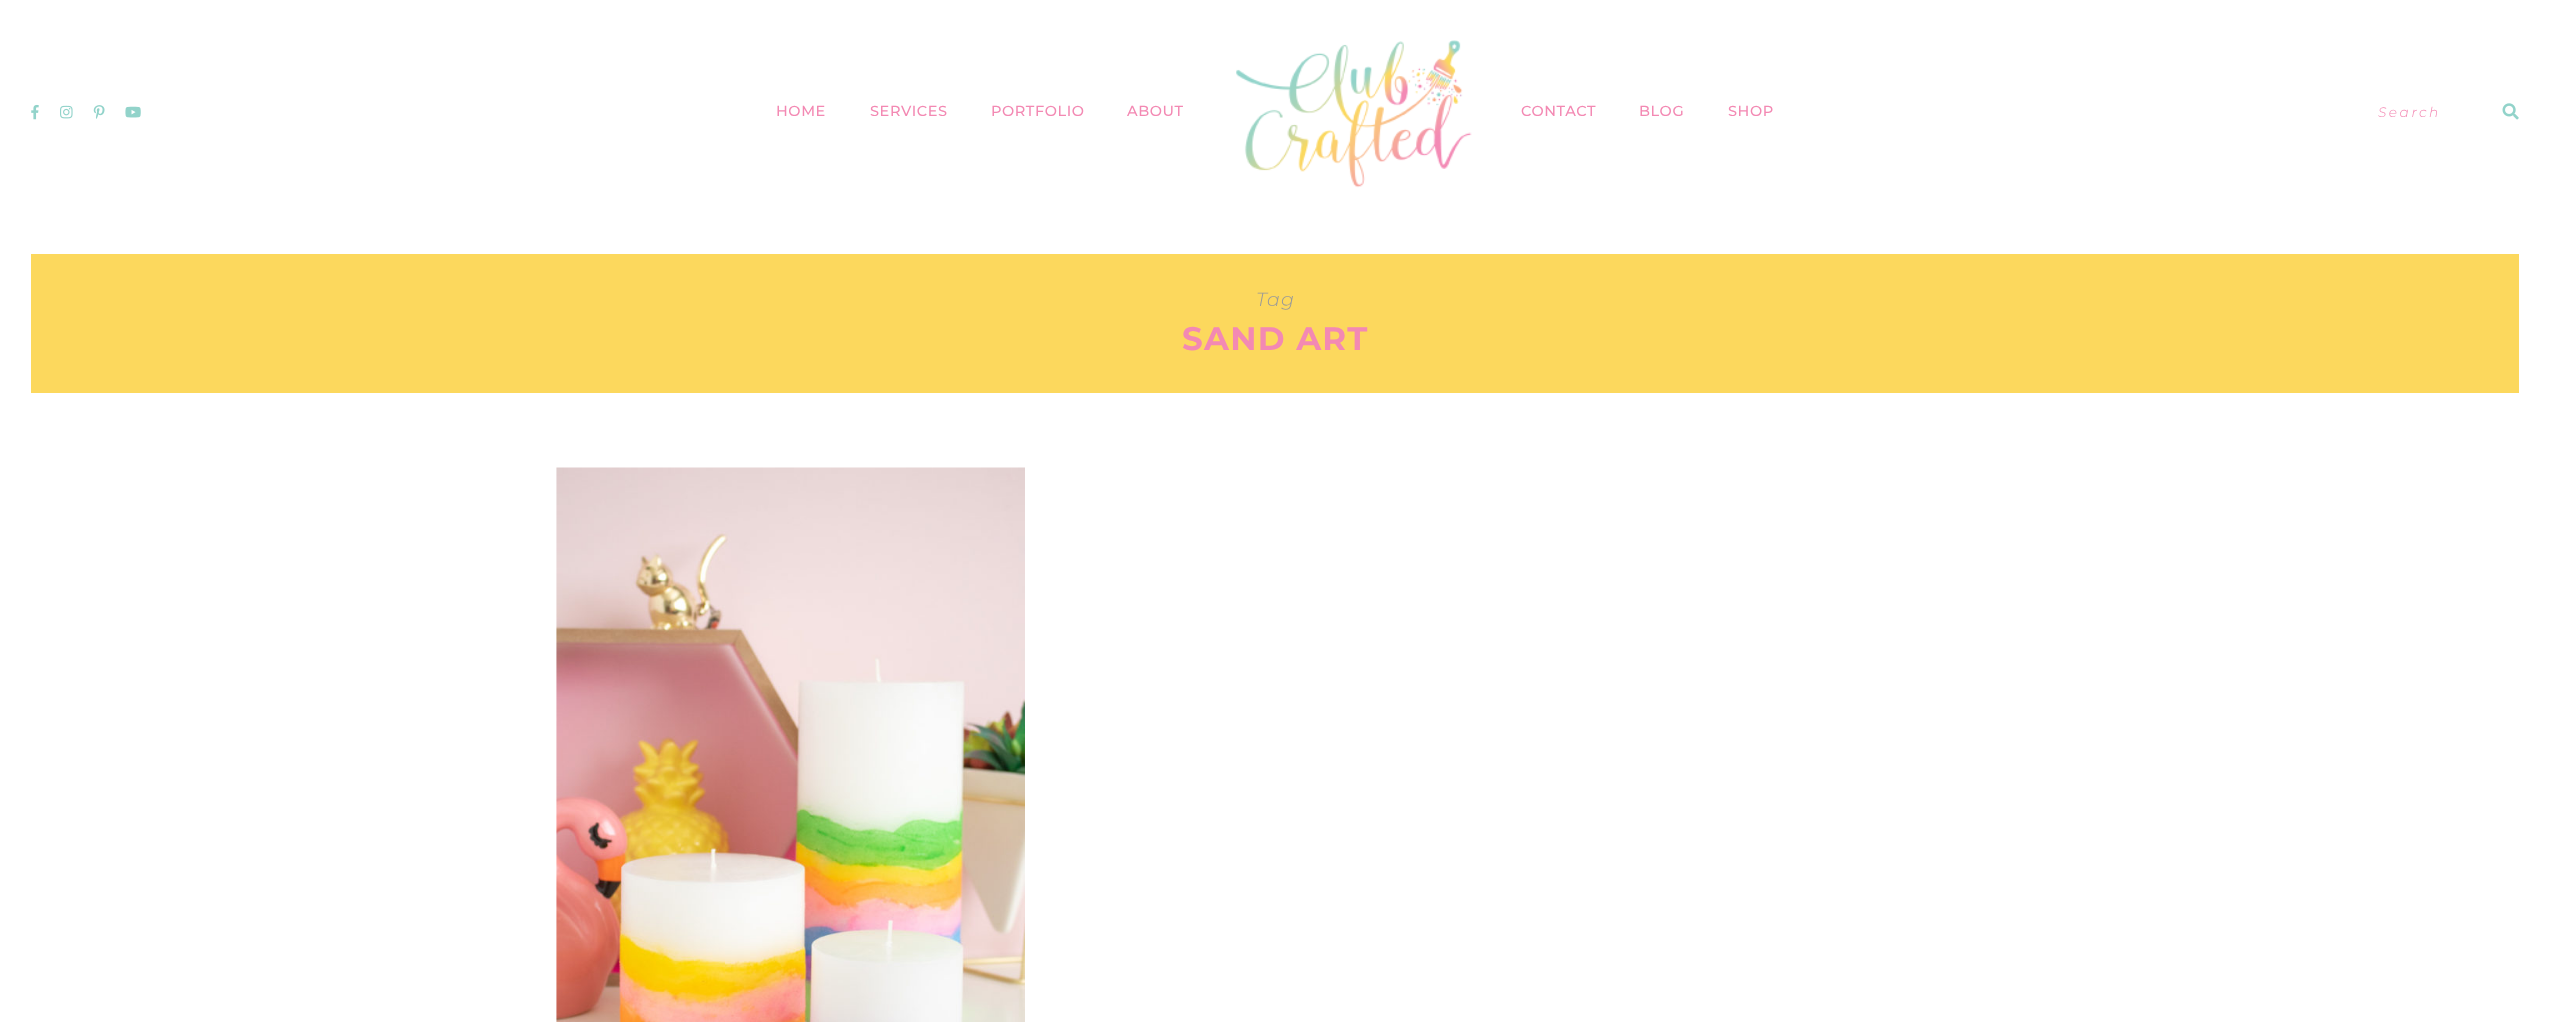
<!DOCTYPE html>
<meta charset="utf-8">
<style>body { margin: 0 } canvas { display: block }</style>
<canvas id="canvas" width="2549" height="1022"></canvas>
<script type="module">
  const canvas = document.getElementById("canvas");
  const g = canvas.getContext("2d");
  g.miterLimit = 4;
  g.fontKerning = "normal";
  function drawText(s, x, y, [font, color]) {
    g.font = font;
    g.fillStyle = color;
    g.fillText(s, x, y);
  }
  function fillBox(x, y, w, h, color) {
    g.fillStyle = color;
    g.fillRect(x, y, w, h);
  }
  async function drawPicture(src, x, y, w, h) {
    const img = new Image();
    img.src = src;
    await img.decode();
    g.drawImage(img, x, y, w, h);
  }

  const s1 = ["500 14.5px Montserrat", "#F389B3"];
  const s2 = ["italic 100 13.75px Montserrat", "#F389B3"];
  const s3 = ["italic 100 19px Montserrat", "#999999"];
  const s4 = ["bold 32.5px Montserrat", "#F389B3"];

  fillBox(0, 0, 2549, 1022, "#FFFFFF");
  await drawPicture("pic1.png", 31, 104, 8, 16);
  await drawPicture("pic2.png", 60, 105, 13, 14);
  await drawPicture("pic3.png", 93, 105, 12, 14);
  await drawPicture("pic4.png", 125, 106, 16, 12);
  g.letterSpacing = "0.6px";
  drawText("HOME", 776, 116, s1);
  drawText("SERVICES", 870, 116, s1);
  drawText("PORTFOLIO", 991, 116, s1);
  drawText("ABOUT", 1127, 116, s1);
  await drawPicture("pic5.png", 1236, 40, 236, 148);
  drawText("CONTACT", 1521, 116, s1);
  drawText("BLOG", 1639, 116, s1);
  drawText("SHOP", 1728, 116, s1);
  g.letterSpacing = "2.5px";
  drawText("Search", 2378, 117, s2);
  await drawPicture("pic6.png", 2502, 103, 17, 17);
  fillBox(31, 254, 2488, 139, "#FCD85D");
  g.letterSpacing = "1.25px";
  drawText("Tag", 1256, 306, s3);
  drawText("SAND ART", 1182, 350, s4);
  await drawPicture("pic7.png", 556, 467, 469, 555);
</script>
